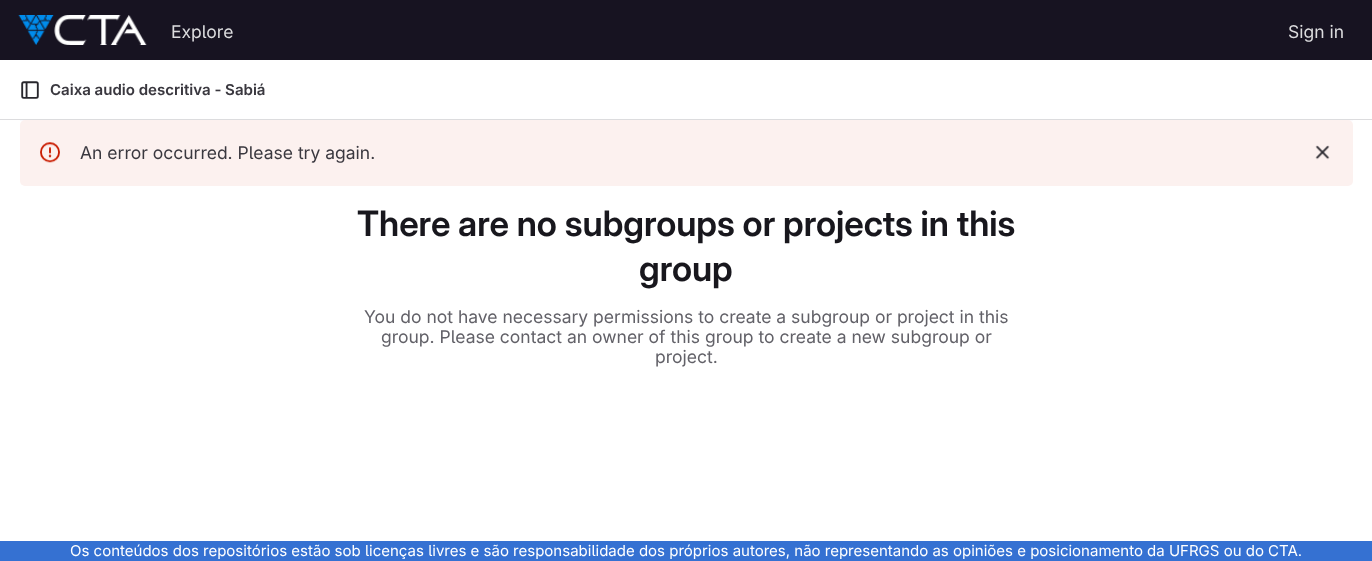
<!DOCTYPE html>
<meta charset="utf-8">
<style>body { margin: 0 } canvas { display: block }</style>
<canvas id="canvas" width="1372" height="561"></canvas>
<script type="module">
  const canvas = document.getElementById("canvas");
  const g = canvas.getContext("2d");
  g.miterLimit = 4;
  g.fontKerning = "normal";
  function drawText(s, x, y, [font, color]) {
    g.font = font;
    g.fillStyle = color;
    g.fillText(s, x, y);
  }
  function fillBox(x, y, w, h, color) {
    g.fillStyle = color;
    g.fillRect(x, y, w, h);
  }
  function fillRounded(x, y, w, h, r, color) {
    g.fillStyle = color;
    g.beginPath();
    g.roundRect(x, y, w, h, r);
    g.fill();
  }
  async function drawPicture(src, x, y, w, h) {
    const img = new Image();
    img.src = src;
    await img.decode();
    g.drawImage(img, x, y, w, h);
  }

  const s1 = ["17.5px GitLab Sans", "#DCDCDE"];
  const s2 = ["600 15px 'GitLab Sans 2'", "#3A383F"];
  const s3 = ["17.5px GitLab Sans", "#3A383F"];
  const s4 = ["600 35px GitLab Sans", "#18171D"];
  const s5 = ["17.5px GitLab Sans", "#626168"];
  const s6 = ["15px GitLab Sans", "#FFFFFF"];

  fillBox(0, 0, 1372, 561, "#FFFFFF");
  fillBox(0, 0, 1372, 60, "#171321");
  await drawPicture("pic1.png", 18, 15, 129, 30);
  drawText("Explore", 171, 38, s1);
  drawText("Sign in", 1288, 38, s1);
  fillBox(0, 119, 1372, 1, "#DCDCDE");
  await drawPicture("pic2.png", 21, 81, 18, 18);
  drawText("Caixa audio descritiva - Sabiá", 50, 95, s2);
  fillBox(20, 120, 1333, 1, "#FBFAFD");
  fillRounded(20, 120, 1333, 66, 5, "#FCF1EF");
  await drawPicture("pic3.png", 40, 142, 20, 21);
  drawText("An error occurred. Please try again.", 80, 159, s3);
  await drawPicture("pic4.png", 1315, 145, 15, 15);
  drawText("There are no subgroups or projects in this", 357, 236, s4);
  drawText("group", 639, 281, s4);
  drawText("You do not have necessary permissions to create a subgroup or project in this", 364, 323, s5);
  drawText("group. Please contact an owner of this group to create a new subgroup or", 381, 343, s5);
  drawText("project.", 655, 363, s5);
  fillBox(0, 541, 1372, 20, "#3571D2");
  drawText("Os conteúdos dos repositórios estão sob licenças livres e são responsabilidade dos próprios autores, não representando as opiniões e posicionamento da UFRGS ou do CTA.", 70, 556, s6);
</script>
